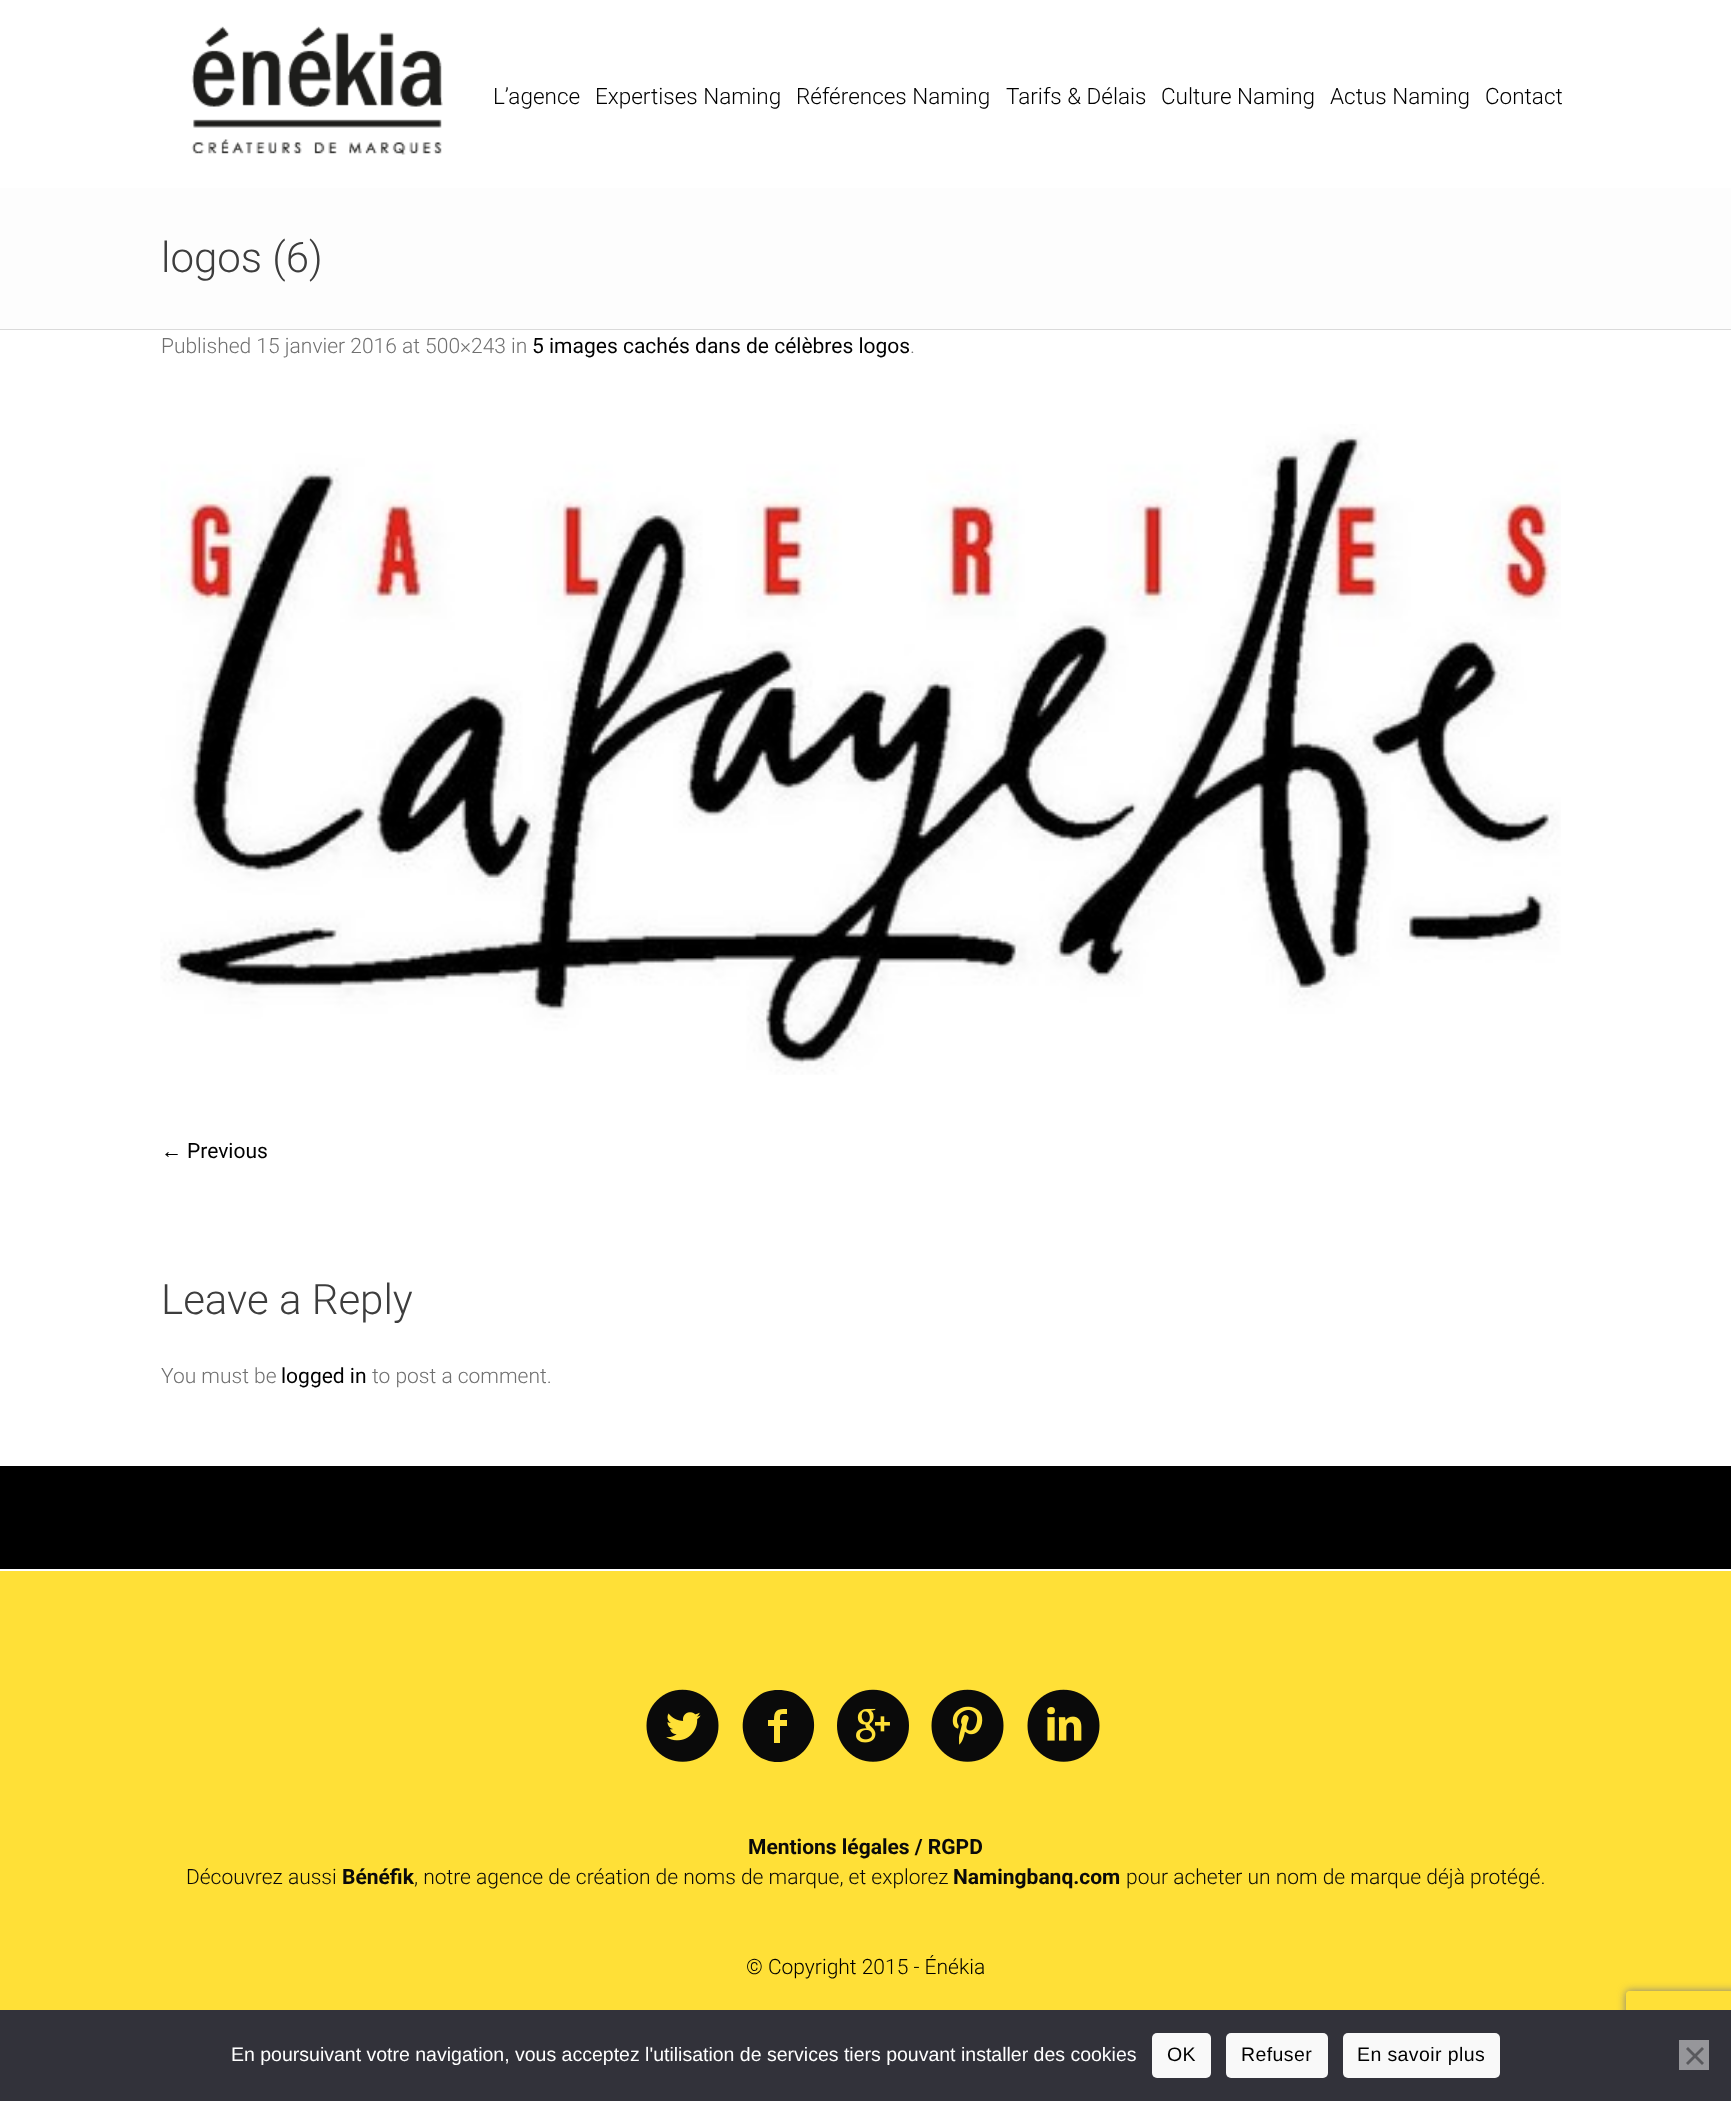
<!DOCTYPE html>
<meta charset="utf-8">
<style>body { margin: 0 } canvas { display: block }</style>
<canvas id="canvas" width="1731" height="2101"></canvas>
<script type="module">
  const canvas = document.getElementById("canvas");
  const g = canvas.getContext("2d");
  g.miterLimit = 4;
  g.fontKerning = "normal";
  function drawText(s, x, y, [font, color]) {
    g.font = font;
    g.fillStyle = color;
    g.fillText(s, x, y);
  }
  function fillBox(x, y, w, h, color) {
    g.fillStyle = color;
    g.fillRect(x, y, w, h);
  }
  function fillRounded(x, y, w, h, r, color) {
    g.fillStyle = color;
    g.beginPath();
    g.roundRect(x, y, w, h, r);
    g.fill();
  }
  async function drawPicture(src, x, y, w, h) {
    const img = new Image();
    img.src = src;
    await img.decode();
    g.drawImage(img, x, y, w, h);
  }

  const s1 = ["300 22.5px Roboto", "#000000"];
  const s2 = ["300 42px Roboto", "#3D3D3D"];
  const s3 = ["300 21px Roboto", "#707070"];
  const s4 = ["21px Roboto", "#000000"];
  const s5 = ["21px Liberation Sans", "#000000"];
  const s6 = ["bold 21px Roboto", "#0A0A0A"];
  const s7 = ["300 21px Roboto", "#0A0A0A"];
  const s8 = ["300 21px Roboto", "#000000"];
  const s9 = ["19.5px Liberation Sans", "#FFFFFF"];
  const s10 = ["19.5px Liberation Sans", "#000000"];

  fillBox(0, 0, 1731, 2101, "#000000");
  fillBox(0, 0, 1731, 188, "#FFFFFF");
  await drawPicture("pic1.png", 191, 26, 252, 129);
  drawText("L’agence", 493, 104, s1);
  drawText("Expertises Naming", 595, 104, s1);
  drawText("Références Naming", 796, 104, s1);
  drawText("Tarifs & Délais", 1006, 104, s1);
  drawText("Culture Naming", 1161, 104, s1);
  drawText("Actus Naming", 1330, 104, s1);
  drawText("Contact", 1485, 104, s1);
  fillBox(0, 188, 1731, 141, "#FDFDFD");
  fillBox(0, 329, 1731, 1, "#DADADA");
  drawText("logos (6)", 161, 272, s2);
  fillBox(0, 330, 1731, 1136, "#FFFFFF");
  drawText("Published 15 janvier 2016 at 500×243 in", 161, 353, s3);
  drawText("5 images cachés dans de célèbres logos", 532, 353, s4);
  drawText(".", 910, 353, s3);
  await drawPicture("pic2.png", 160, 424, 1401, 651);
  drawText("←", 161, 1158, s5);
  drawText("Previous", 187, 1158, s4);
  drawText("Leave a Reply", 161, 1314, s2);
  drawText("You must be", 161, 1383, s3);
  drawText("logged in", 281, 1383, s4);
  drawText("to post a comment.", 372, 1383, s3);
  fillBox(0, 1571, 1731, 439, "#FFE037");
  fillBox(0, 1569, 1731, 2, "#FFFFFF");
  await drawPicture("pic3.png", 646, 1689, 73, 73);
  g.fillStyle = "#0A0A0A";
  g.beginPath();
  g.moveTo(778, 1690);
  g.bezierCurveTo(787, 1690, 795, 1692, 801, 1698);
  g.bezierCurveTo(827, 1719, 812, 1762, 778, 1762);
  g.bezierCurveTo(745, 1762, 730, 1719, 756, 1698);
  g.bezierCurveTo(762, 1692, 770, 1690, 778, 1690);
  g.closePath();
  g.moveTo(787, 1714);
  g.lineTo(787, 1709);
  g.bezierCurveTo(777, 1709, 774, 1710, 774, 1720);
  g.lineTo(768, 1720);
  g.lineTo(768, 1726);
  g.lineTo(774, 1726);
  g.lineTo(774, 1743);
  g.lineTo(780, 1743);
  g.lineTo(780, 1726);
  g.lineTo(787, 1726);
  g.lineTo(787, 1720);
  g.lineTo(780, 1720);
  g.bezierCurveTo(780, 1713, 780, 1714, 787, 1714);
  g.closePath();
  g.fill();
  await drawPicture("pic4.png", 837, 1689, 72, 73);
  await drawPicture("pic5.png", 931, 1689, 73, 73);
  await drawPicture("pic6.png", 1027, 1689, 73, 73);
  drawText("Mentions légales / RGPD", 748, 1854, s6);
  drawText("Découvrez aussi", 186, 1884, s7);
  drawText("Bénéfik", 342, 1884, s6);
  drawText(", notre agence de création de noms de marque, et explorez", 414, 1884, s7);
  drawText("Namingbanq.com", 953, 1884, s6);
  drawText("pour acheter un nom de marque déjà protégé.", 1126, 1884, s7);
  drawText("© Copyright 2015 - Énékia", 746, 1974, s8);
  g.save();
  g.beginPath();
  g.moveTo(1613, 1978);
  g.lineTo(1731, 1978);
  g.lineTo(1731, 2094);
  g.lineTo(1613, 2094);
  g.closePath();
  g.moveTo(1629, 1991);
  g.lineTo(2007, 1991);
  g.bezierCurveTo(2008.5, 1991, 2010, 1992.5, 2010, 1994);
  g.lineTo(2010, 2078);
  g.bezierCurveTo(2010, 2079.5, 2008.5, 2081, 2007, 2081);
  g.lineTo(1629, 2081);
  g.bezierCurveTo(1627.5, 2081, 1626, 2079.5, 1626, 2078);
  g.lineTo(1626, 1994);
  g.bezierCurveTo(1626, 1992.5, 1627.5, 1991, 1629, 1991);
  g.closePath();
  g.clip("evenodd");
  g.fillStyle = "#808080";
  g.filter = "blur(4px)";
  g.beginPath();
  g.roundRect(1626, 1991, 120, 90, 3);
  g.fill();
  g.filter = "none";
  g.restore();
  fillBox(0, 2010, 1731, 91, "#32323A");
  drawText("En poursuivant votre navigation, vous acceptez l'utilisation de services tiers pouvant installer des cookies", 231, 2061, s9);
  fillRounded(1152, 2033, 59, 45, 5, "#F9F9F9");
  g.letterSpacing = "0.4px";
  drawText("OK", 1167, 2061, s10);
  fillRounded(1226, 2033, 102, 45, 5, "#F9F9F9");
  drawText("Refuser", 1241, 2061, s10);
  fillRounded(1343, 2033, 157, 45, 5, "#F9F9F9");
  drawText("En savoir plus", 1357, 2061, s10);
  fillBox(1679, 2040, 30, 30, "#96969A");
  g.fillStyle = "#59595D";
  g.beginPath();
  g.moveTo(1702, 2047);
  g.lineTo(1704, 2049);
  g.lineTo(1688, 2065);
  g.lineTo(1686, 2063);
  g.closePath();
  g.fill();
  g.beginPath();
  g.moveTo(1686, 2049);
  g.lineTo(1688, 2047);
  g.lineTo(1704, 2063);
  g.lineTo(1702, 2065);
  g.closePath();
  g.fill();
</script>
